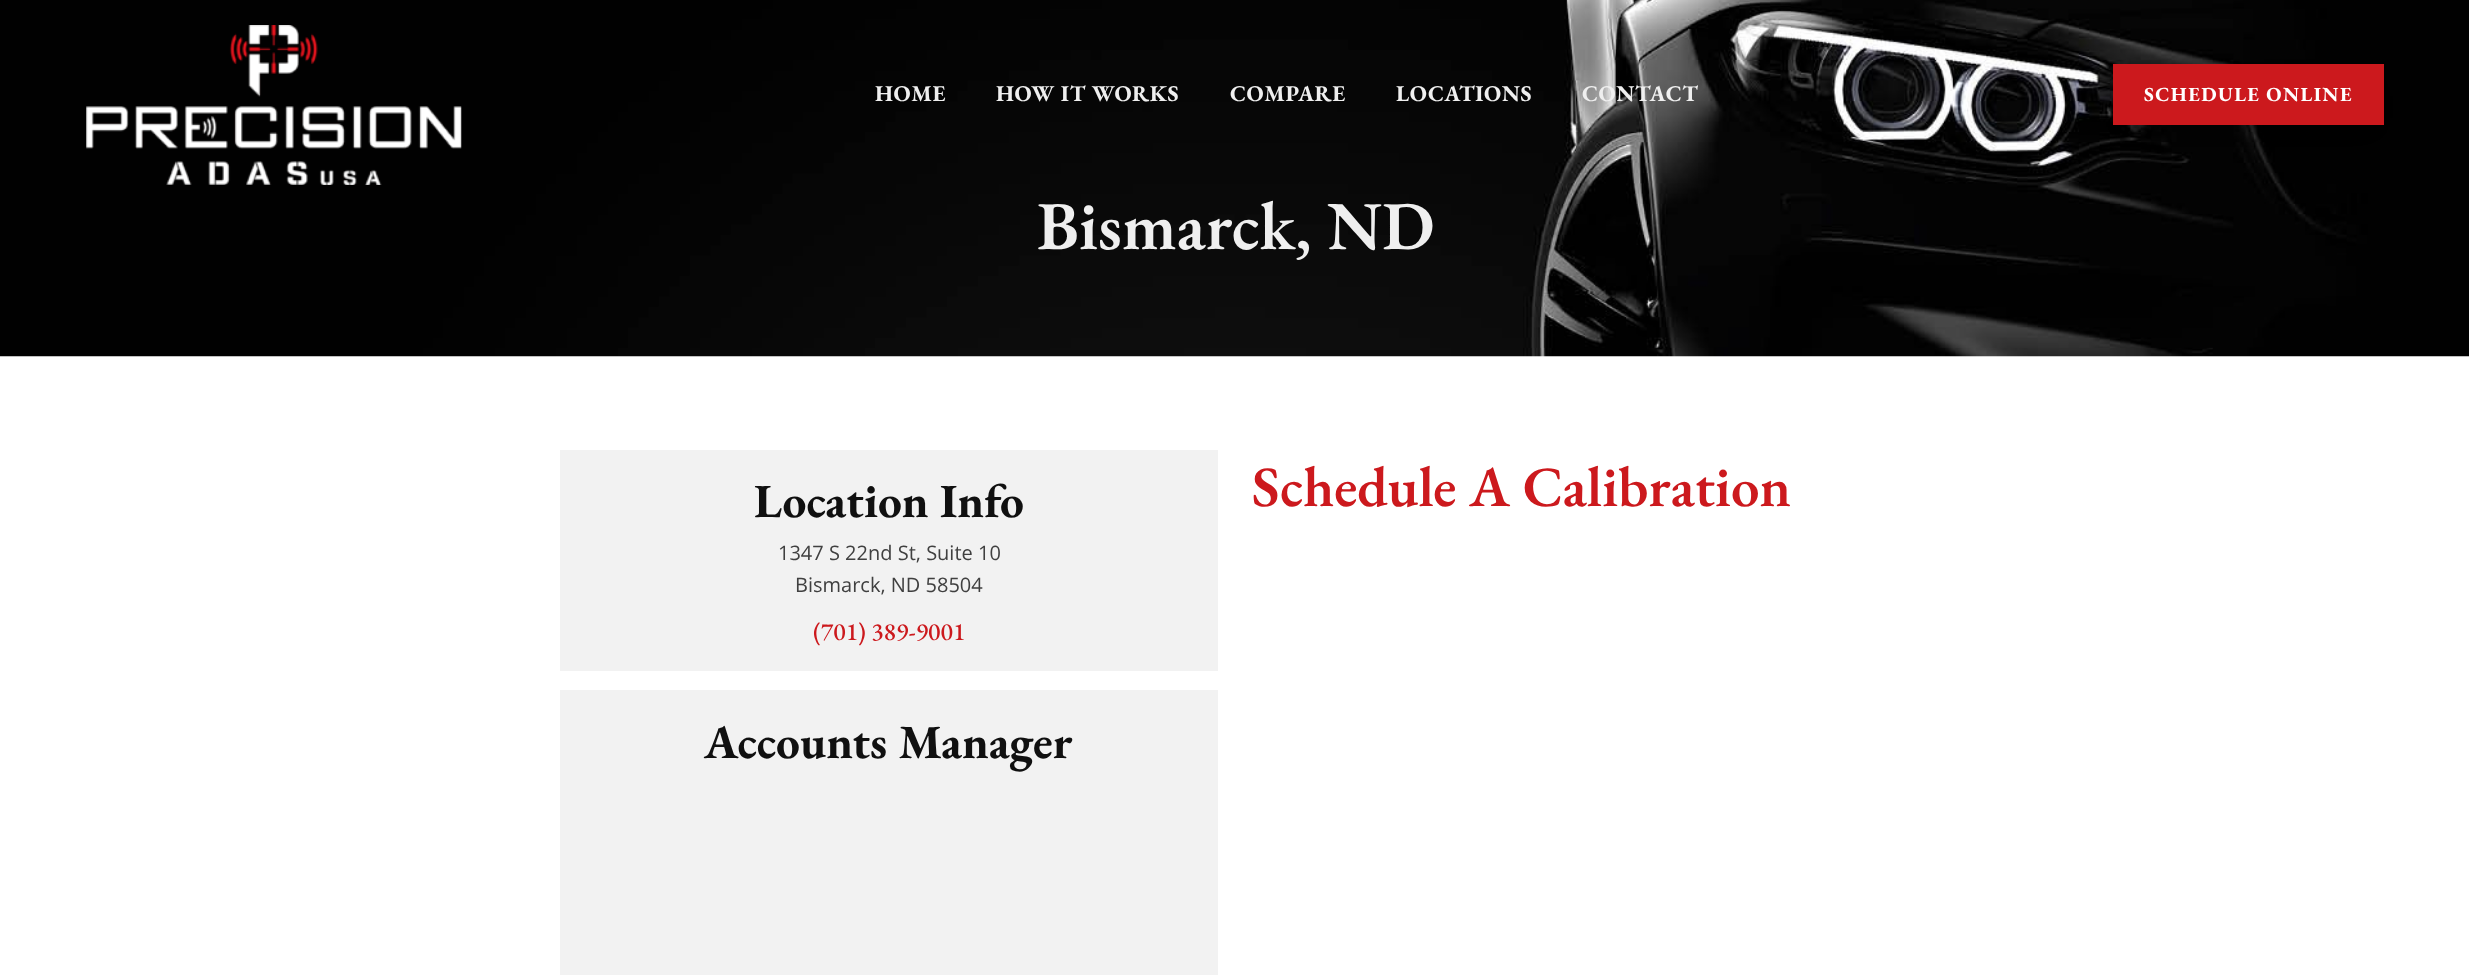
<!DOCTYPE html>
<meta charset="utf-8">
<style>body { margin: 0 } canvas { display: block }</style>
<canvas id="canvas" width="2469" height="975"></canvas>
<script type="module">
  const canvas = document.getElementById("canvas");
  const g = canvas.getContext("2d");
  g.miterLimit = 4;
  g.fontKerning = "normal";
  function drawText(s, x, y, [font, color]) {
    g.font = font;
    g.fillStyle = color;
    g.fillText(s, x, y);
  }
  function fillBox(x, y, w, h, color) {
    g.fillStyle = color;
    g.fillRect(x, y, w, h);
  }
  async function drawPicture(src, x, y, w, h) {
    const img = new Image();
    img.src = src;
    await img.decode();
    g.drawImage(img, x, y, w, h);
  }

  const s1 = ["bold 22.5px EB Garamond", "#EFEFEF"];
  const s2 = ["bold 20px EB Garamond", "#FFFFFF"];
  const s3 = ["600 68.5px EB Garamond", "#EFEFEF"];
  const s4 = ["bold 47.5px EB Garamond", "#101010"];
  const s5 = ["20px Open Sans", "#404040"];
  const s6 = ["500 25px EB Garamond", "#CC191D"];
  const s7 = ["600 57px EB Garamond", "#CC191D"];

  fillBox(0, 0, 2469, 975, "#FFFFFF");
  await drawPicture("pic2.png", 0, 0, 2469, 357);
  await drawPicture("pic1.png", 86, 25, 376, 160);
  g.letterSpacing = "0.6px";
  drawText("HOME", 875, 101, s1);
  drawText("HOW IT WORKS", 996, 101, s1);
  drawText("COMPARE", 1230, 101, s1);
  drawText("LOCATIONS", 1396, 101, s1);
  drawText("CONTACT", 1582, 101, s1);
  g.fillStyle = "rgba(0, 0, 0, 0.5)";
  g.filter = "blur(12.5px)";
  g.beginPath();
  g.rect(2131, 95, 234, 24);
  g.fill();
  g.filter = "none";
  fillBox(2113, 64, 271, 61, "#CC191D");
  g.letterSpacing = "1.4px";
  drawText("SCHEDULE ONLINE", 2144, 101, s2);
  g.letterSpacing = "0px";
  drawText("Bismarck, ND", 1037, 249, s3);
  fillBox(560, 450, 658, 221, "#F2F2F2");
  drawText("Location Info", 754, 517, s4);
  drawText("1347 S 22nd St, Suite 10", 778, 560, s5);
  drawText("Bismarck, ND 58504", 795, 592, s5);
  drawText("(701) 389-9001", 813, 640, s6);
  fillBox(560, 690, 658, 285, "#F2F2F2");
  drawText("Accounts Manager", 704, 758, s4);
  drawText("Schedule A Calibration", 1252, 506, s7);
</script>
